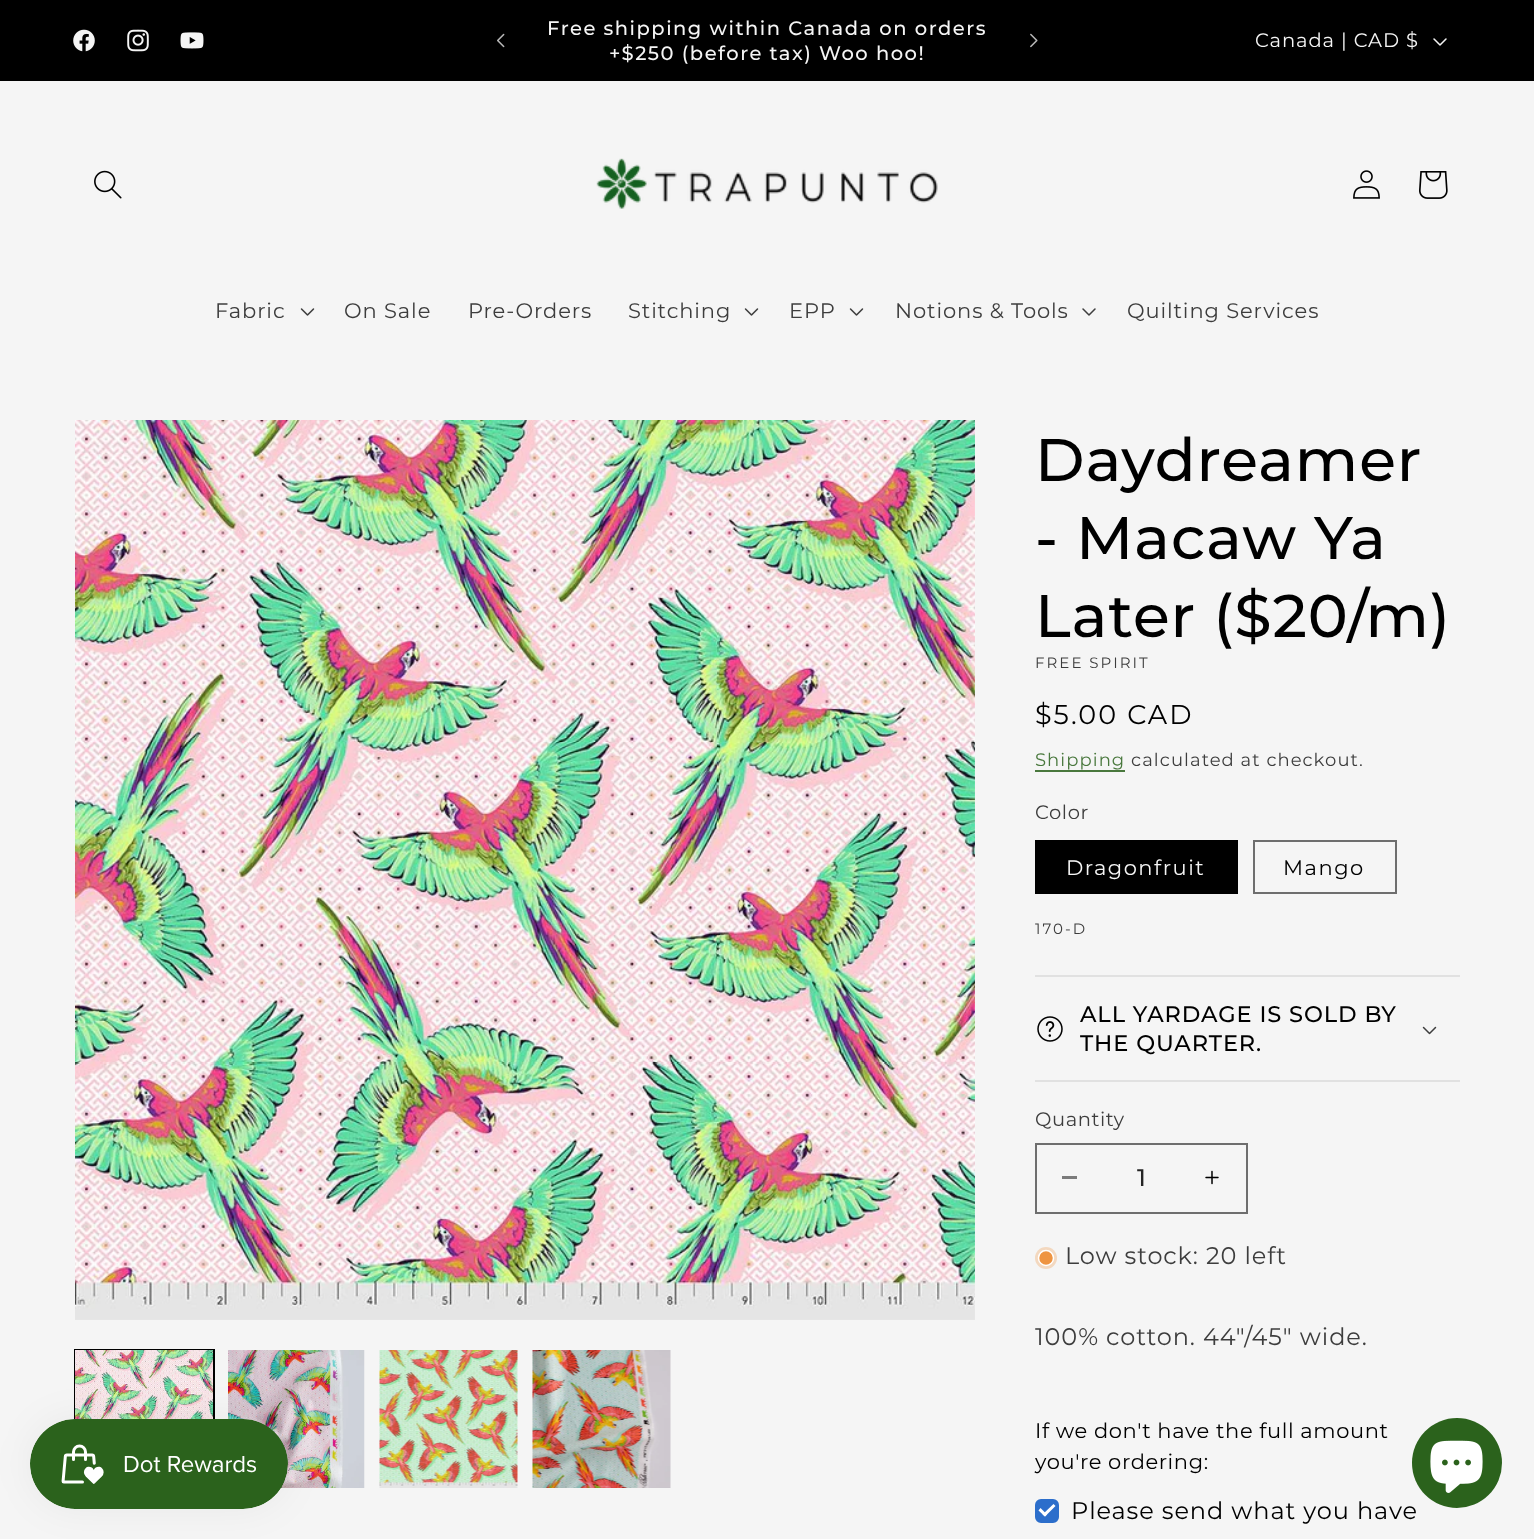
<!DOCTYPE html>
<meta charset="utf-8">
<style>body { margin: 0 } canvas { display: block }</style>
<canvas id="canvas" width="1534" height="1539"></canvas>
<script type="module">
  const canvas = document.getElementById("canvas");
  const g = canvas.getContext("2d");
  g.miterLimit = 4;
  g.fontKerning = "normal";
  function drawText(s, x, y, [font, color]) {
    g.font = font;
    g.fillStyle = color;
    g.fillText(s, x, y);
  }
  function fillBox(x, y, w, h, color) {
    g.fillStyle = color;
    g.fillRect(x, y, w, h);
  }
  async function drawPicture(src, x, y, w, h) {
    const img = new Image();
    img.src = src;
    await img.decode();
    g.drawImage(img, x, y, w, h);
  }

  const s1 = ["500 19.5px Montserrat", "#F5F5F5"];
  const s2 = ["19.5px Montserrat", "#F5F5F5"];
  const s3 = ["21px Montserrat", "#3D3D3D"];
  const s4 = ["500 60px Montserrat", "#000000"];
  const s5 = ["15px Montserrat", "#3D3D3D"];
  const s6 = ["27px Montserrat", "#000000"];
  const s7 = ["18px Montserrat", "#49783D"];
  const s8 = ["18px Montserrat", "#3D3D3D"];
  const s9 = ["19.5px Montserrat", "#3D3D3D"];
  const s10 = ["21px Montserrat", "#F5F5F5"];
  const s11 = ["21px Montserrat", "#000000"];
  const s12 = ["500 22.5px Montserrat", "#000000"];
  const s13 = ["500 24px Montserrat", "#252525"];
  const s14 = ["24px Montserrat", "#3D3D3D"];
  const s15 = ["24px Montserrat", "#000000"];

  fillBox(0, 0, 1534, 1539, "#F5F5F5");
  fillBox(0, 0, 1534, 81, "#000000");
  await drawPicture("pic1.png", 73, 29, 22, 23);
  await drawPicture("pic2.png", 127, 29, 22, 23);
  await drawPicture("pic3.png", 180, 32, 24, 17);
  await drawPicture("pic4.png", 497, 33, 8, 15);
  g.letterSpacing = "1.5px";
  drawText("Free shipping within Canada on orders", 547, 35, s1);
  drawText("+$250 (before tax) Woo hoo!", 609, 60, s1);
  await drawPicture("pic5.png", 1030, 33, 8, 15);
  g.letterSpacing = "0.9px";
  drawText("Canada | CAD $", 1255, 47, s2);
  await drawPicture("pic6.png", 1433, 38, 14, 8);
  await drawPicture("pic7.png", 94, 170, 28, 29);
  await drawPicture("pic8.png", 596, 158, 342, 51);
  await drawPicture("pic9.png", 1353, 170, 27, 29);
  await drawPicture("pic10.png", 1419, 171, 29, 28);
  drawText("Fabric", 215, 318, s3);
  await drawPicture("pic11.png", 300, 308, 15, 8);
  drawText("On Sale", 344, 318, s3);
  drawText("Pre-Orders", 468, 318, s3);
  drawText("Stitching", 628, 318, s3);
  await drawPicture("pic11.png", 744, 308, 15, 8);
  drawText("EPP", 789, 318, s3);
  await drawPicture("pic11.png", 849, 308, 15, 8);
  drawText("Notions & Tools", 895, 318, s3);
  await drawPicture("pic12.png", 1082, 308, 14, 8);
  drawText("Quilting Services", 1127, 318, s3);
  g.strokeStyle = "#000000";
  g.lineWidth = 2;
  g.strokeRect(75, 1350, 139, 139);
  await drawPicture("pic15.png", 75, 1350, 138, 69);
  await drawPicture("pic16.png", 228, 1350, 137, 138);
  g.fillStyle = "rgba(0, 0, 0, 0.05)";
  g.filter = "blur(19px)";
  g.beginPath();
  g.roundRect(30, 1419, 258, 90, 45);
  g.fill();
  g.filter = "none";
  await drawPicture("pic13.png", 30, 1419, 258, 90);
  await drawPicture("pic14.png", 75, 420, 900, 900);
  await drawPicture("pic17.png", 379, 1350, 139, 138);
  await drawPicture("pic18.png", 532, 1350, 139, 138);
  drawText("Daydreamer", 1035, 481, s4);
  drawText("- Macaw Ya", 1035, 559, s4);
  drawText("Later ($20/m)", 1035, 637, s4);
  g.letterSpacing = "2px";
  drawText("FREE SPIRIT", 1035, 668, s5);
  drawText("$5.00 CAD", 1035, 724, s6);
  g.letterSpacing = "1.05px";
  drawText("Shipping", 1035, 766, s7);
  fillBox(1035, 770, 90, 2, "#49783D");
  drawText("calculated at checkout.", 1131, 766, s8);
  g.letterSpacing = "0.6px";
  drawText("Color", 1035, 819, s9);
  fillBox(1035, 840, 203, 54, "#000000");
  g.letterSpacing = "1.5px";
  drawText("Dragonfruit", 1066, 875, s10);
  g.strokeStyle = "#6E6E6E";
  g.strokeRect(1254, 841, 142, 52);
  drawText("Mango", 1283, 875, s11);
  g.letterSpacing = "2px";
  drawText("170-D", 1035, 934, s5);
  fillBox(1035, 975, 425, 2, "#E1E1E1");
  fillBox(1035, 1080, 425, 2, "#E1E1E1");
  await drawPicture("pic19.png", 1037, 1016, 26, 26);
  g.letterSpacing = "0.9px";
  drawText("ALL YARDAGE IS SOLD BY", 1080, 1022, s12);
  drawText("THE QUARTER.", 1080, 1051, s12);
  await drawPicture("pic20.png", 1422, 1026, 15, 9);
  g.letterSpacing = "0.6px";
  drawText("Quantity", 1035, 1126, s9);
  fillBox(1062, 1176, 15, 3, "#7B7B7B");
  await drawPicture("pic21.png", 1205, 1170, 14, 15);
  g.strokeRect(1036, 1144, 211, 69);
  g.letterSpacing = "0px";
  drawText("1", 1137, 1186, s13);
  g.fillStyle = "#F3D8BF";
  g.beginPath();
  g.arc(1046, 1258, 11, 0, Math.PI * 2);
  g.fill();
  g.fillStyle = "#EE9441";
  g.beginPath();
  g.arc(1046, 1258, 7.5, 0, Math.PI * 2);
  g.fill();
  g.strokeStyle = "#FFFFFF";
  g.lineWidth = 1.5;
  g.stroke();
  g.letterSpacing = "0.9px";
  drawText("Low stock: 20 left", 1065, 1264, s14);
  drawText("100% cotton. 44\"/45\" wide.", 1035, 1345, s14);
  g.letterSpacing = "0.6px";
  drawText("If we don't have the full amount", 1035, 1438, s11);
  drawText("you're ordering:", 1035, 1469, s11);
  g.fillStyle = "#2C6ECB";
  g.beginPath();
  g.roundRect(1036, 1500, 22, 22, 5);
  g.fill();
  g.strokeStyle = "#2C6ECB";
  g.lineWidth = 2;
  g.stroke();
  g.letterSpacing = "0.9px";
  drawText("Please send what you have", 1071, 1519, s15);
  g.fillStyle = "#FFFFFF";
  g.beginPath();
  g.moveTo(1053.5, 1504);
  g.lineTo(1055.5, 1506);
  g.lineTo(1045, 1516.5);
  g.lineTo(1042.5, 1514.5);
  g.closePath();
  g.fill();
  g.beginPath();
  g.moveTo(1040.5, 1508);
  g.lineTo(1047, 1514.5);
  g.lineTo(1045, 1516.5);
  g.lineTo(1038.5, 1510.5);
  g.closePath();
  g.fill();
  g.fillStyle = "#2B621C";
  g.beginPath();
  g.arc(1457, 1463, 45, 0, Math.PI * 2);
  g.fill();
  await drawPicture("pic22.png", 1430, 1440, 53, 53);
</script>
